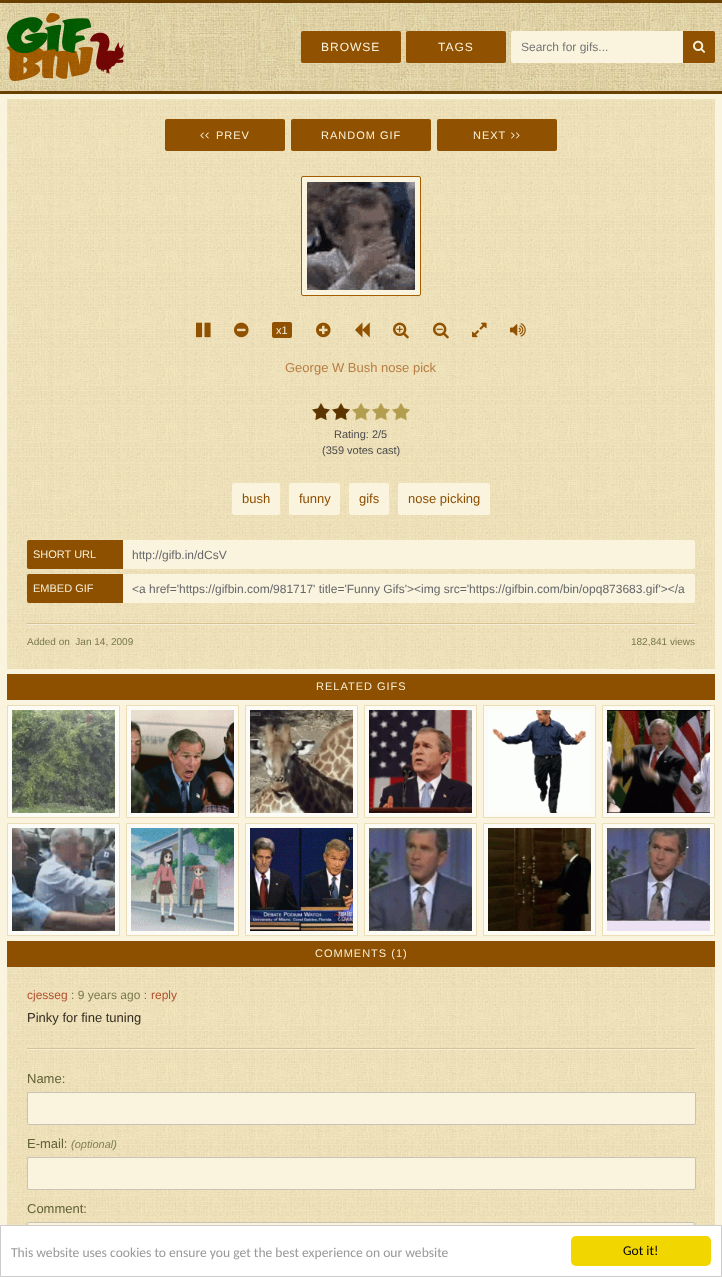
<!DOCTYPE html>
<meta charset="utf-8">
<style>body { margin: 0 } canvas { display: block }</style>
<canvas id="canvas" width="722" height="1277"></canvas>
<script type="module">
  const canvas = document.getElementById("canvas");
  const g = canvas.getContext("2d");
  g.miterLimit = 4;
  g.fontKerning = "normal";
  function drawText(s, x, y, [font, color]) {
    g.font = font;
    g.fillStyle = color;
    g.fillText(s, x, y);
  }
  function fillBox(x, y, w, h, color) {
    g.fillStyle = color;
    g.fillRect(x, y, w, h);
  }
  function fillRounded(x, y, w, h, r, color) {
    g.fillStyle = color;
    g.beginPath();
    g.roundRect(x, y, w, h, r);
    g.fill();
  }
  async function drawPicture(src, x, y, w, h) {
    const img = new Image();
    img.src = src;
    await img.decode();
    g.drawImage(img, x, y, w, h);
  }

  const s1 = ["12px Liberation Sans", "#FAF4DF"];
  const s2 = ["12px Liberation Sans", "#757575"];
  const s3 = ["11px Liberation Sans", "#FAF4DF"];
  const s4 = ["13px Liberation Sans", "#B77D43"];
  const s5 = ["11px Liberation Sans", "#4A4A4A"];
  const s6 = ["13px Liberation Sans", "#8C4E00"];
  const s7 = ["11px Liberation Sans", "#F7EFD4"];
  const s8 = ["12px Liberation Sans", "#656769"];
  const s9 = ["10px Liberation Sans", "#78784E"];
  const s10 = ["12px Liberation Sans", "#B24F2C"];
  const s11 = ["12px Liberation Sans", "#78784E"];
  const s12 = ["13px Liberation Sans", "#332E21"];
  const s13 = ["13px Liberation Sans", "#606039"];
  const s14 = ["italic 11px Liberation Sans", "#818158"];
  const s15 = ["13.6px Carlito", "#999999"];
  const s16 = ["13.6px Carlito", "#000000"];

  fillBox(0, 0, 722, 1277, "#FAF4DF");
  await drawPicture("pic1.png", 0, 3, 722, 88);
  fillBox(0, 0, 722, 3, "#684100");
  fillBox(0, 91, 722, 3, "#684100");
  await drawPicture("pic2.png", 7, 13, 117, 68);
  fillRounded(301, 31, 100, 32, 2, "#905100");
  g.letterSpacing = "1px";
  drawText("BROWSE", 321, 51, s1);
  fillRounded(406, 31, 100, 32, 2, "#905100");
  drawText("TAGS", 438, 51, s1);
  g.beginPath();
  g.roundRect(511, 31, 172, 32, [2, 0, 0, 2]);
  g.fill();
  g.letterSpacing = "0px";
  drawText("Search for gifs...", 521, 51, s2);
  g.fillStyle = "#905100";
  g.beginPath();
  g.roundRect(683, 31, 32, 32, [0, 2, 2, 0]);
  g.fill();
  await drawPicture("pic3.png", 693, 40, 12, 13);
  await drawPicture("pic4.png", 7, 99, 708, 570);
  fillRounded(165, 119, 120, 32, 2, "#905100");
  await drawPicture("pic5.png", 200, 132, 9, 7);
  g.letterSpacing = "1px";
  drawText("PREV", 216, 139, s3);
  fillRounded(291, 119, 140, 32, 2, "#905100");
  drawText("RANDOM GIF", 321, 139, s3);
  fillRounded(437, 119, 120, 32, 2, "#905100");
  drawText("NEXT", 473, 139, s3);
  await drawPicture("pic6.png", 511, 132, 9, 7);
  g.beginPath();
  g.roundRect(301.5, 176.5, 119, 119, 1.5);
  g.fill();
  g.strokeStyle = "#A45E00";
  g.stroke();
  await drawPicture("pic7.png", 307, 182, 108, 108);
  await drawPicture("pic8.png", 196, 322, 15, 16);
  await drawPicture("pic9.png", 234, 322, 15, 16);
  fillRounded(272, 322, 20, 16, 2, "#905100");
  g.letterSpacing = "0px";
  drawText("x1", 276, 334, s3);
  await drawPicture("pic10.png", 316, 322, 15, 16);
  await drawPicture("pic11.png", 355, 322, 15, 16);
  await drawPicture("pic12.png", 393, 322, 16, 17);
  await drawPicture("pic13.png", 433, 322, 16, 17);
  await drawPicture("pic14.png", 472, 322, 15, 16);
  await drawPicture("pic15.png", 510, 323, 16, 14);
  drawText("George W Bush nose pick", 285, 372, s4);
  await drawPicture("pic16.png", 315, 403, 95, 18);
  await drawPicture("pic17.png", 312, 403, 38, 17);
  drawText("Rating: 2/5", 334, 438, s5);
  drawText("(359 votes cast)", 322, 454, s5);
  fillRounded(232, 483, 48, 32, 2, "#FAF4DF");
  drawText("bush", 242, 503, s6);
  fillRounded(289, 483, 51, 32, 2, "#FAF4DF");
  drawText("funny", 299, 503, s6);
  fillRounded(349, 483, 40, 32, 2, "#FAF4DF");
  drawText("gifs", 359, 503, s6);
  fillRounded(398, 483, 92, 32, 2, "#FAF4DF");
  drawText("nose picking", 408, 503, s6);
  g.fillStyle = "#8D4F00";
  g.beginPath();
  g.roundRect(27, 540, 96, 29, [2, 0, 0, 2]);
  g.fill();
  drawText("SHORT URL", 33, 558, s7);
  g.fillStyle = "#FAF4DF";
  g.beginPath();
  g.roundRect(123, 540, 572, 29, [0, 2, 2, 0]);
  g.fill();
  drawText("http://gifb.in/dCsV", 132, 559, s8);
  g.fillStyle = "#8D4F00";
  g.beginPath();
  g.roundRect(27, 574, 96, 29, [2, 0, 0, 2]);
  g.fill();
  drawText("EMBED GIF", 33, 592, s7);
  g.fillStyle = "#FAF4DF";
  g.beginPath();
  g.roundRect(123, 574, 572, 29, [0, 2, 2, 0]);
  g.fill();
  drawText("<a href='https://gifbin.com/981717' title='Funny Gifs'><img src='https://gifbin.com/bin/opq873683.gif'><\/a", 132, 593, s8);
  fillBox(27, 623, 668, 1, "#D5C395");
  fillBox(27, 624, 668, 1, "#F5EDD9");
  drawText("Added on  Jan 14, 2009", 27, 645, s9);
  drawText("182,841 views", 631, 645, s9);
  fillBox(7, 674, 708, 26, "#8D4F00");
  g.letterSpacing = "1px";
  drawText("RELATED GIFS", 316, 690, s7);
  g.fillStyle = "#FDFBF6";
  g.beginPath();
  g.rect(7.5, 705.5, 112, 112);
  g.fill();
  g.strokeStyle = "#EBDDB5";
  g.stroke();
  await drawPicture("pic18.png", 12, 710, 103, 103);
  g.beginPath();
  g.rect(126.5, 705.5, 112, 112);
  g.fill();
  g.stroke();
  await drawPicture("pic19.png", 131, 710, 103, 103);
  g.beginPath();
  g.rect(245.5, 705.5, 112, 112);
  g.fill();
  g.stroke();
  await drawPicture("pic20.png", 250, 710, 103, 103);
  g.beginPath();
  g.rect(364.5, 705.5, 112, 112);
  g.fill();
  g.stroke();
  await drawPicture("pic21.png", 369, 710, 103, 103);
  g.beginPath();
  g.rect(483.5, 705.5, 112, 112);
  g.fill();
  g.stroke();
  await drawPicture("pic22.png", 488, 710, 103, 103);
  g.beginPath();
  g.rect(602.5, 705.5, 112, 112);
  g.fill();
  g.stroke();
  await drawPicture("pic23.png", 607, 710, 103, 103);
  g.beginPath();
  g.rect(7.5, 823.5, 112, 112);
  g.fill();
  g.stroke();
  await drawPicture("pic24.png", 12, 828, 103, 103);
  g.beginPath();
  g.rect(126.5, 823.5, 112, 112);
  g.fill();
  g.stroke();
  await drawPicture("pic25.png", 131, 828, 103, 103);
  g.beginPath();
  g.rect(245.5, 823.5, 112, 112);
  g.fill();
  g.stroke();
  await drawPicture("pic26.png", 250, 828, 103, 103);
  g.beginPath();
  g.rect(364.5, 823.5, 112, 112);
  g.fill();
  g.stroke();
  await drawPicture("pic27.png", 369, 828, 103, 103);
  g.beginPath();
  g.rect(483.5, 823.5, 112, 112);
  g.fill();
  g.stroke();
  await drawPicture("pic28.png", 488, 828, 103, 103);
  g.beginPath();
  g.rect(602.5, 823.5, 112, 112);
  g.fill();
  g.stroke();
  await drawPicture("pic29.png", 607, 828, 103, 103);
  fillBox(7, 941, 708, 26, "#8D4F00");
  drawText("COMMENTS (1)", 315, 957, s7);
  await drawPicture("pic30.png", 7, 967, 708, 258);
  g.letterSpacing = "0px";
  drawText("cjesseg", 27, 999, s10);
  drawText(": 9 years ago :", 71, 999, s11);
  drawText("reply", 151, 999, s10);
  drawText("Pinky for fine tuning", 27, 1022, s12);
  fillBox(27, 1048, 668, 1, "#D5C395");
  fillBox(27, 1049, 668, 1, "#F5EDD9");
  drawText("Name:", 27, 1083, s13);
  g.fillStyle = "#FAF4DF";
  g.beginPath();
  g.roundRect(27.5, 1092.5, 668, 32, 1.5);
  g.fill();
  g.strokeStyle = "#C8C3B6";
  g.stroke();
  drawText("E-mail:", 27, 1148, s13);
  drawText("(optional)", 71, 1148, s14);
  g.fillStyle = "#FAF4DF";
  g.beginPath();
  g.roundRect(27.5, 1157.5, 668, 32, 1.5);
  g.fill();
  g.stroke();
  drawText("Comment:", 27, 1213, s13);
  g.fillStyle = "#FAF4DF";
  g.beginPath();
  g.roundRect(27.5, 1222.5, 667, 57, 1.5);
  g.fill();
  g.stroke();
  g.fillStyle = "#FFFFFF";
  g.beginPath();
  g.rect(0.5, 1225.5, 721, 51);
  g.fill();
  g.strokeStyle = "#CCCCCC";
  g.stroke();
  drawText("This website uses cookies to ensure you get the best experience on our website", 11, 1257, s15);
  fillRounded(571, 1236, 140, 30, 5, "#F1D600");
  drawText("Got it!", 623, 1255, s16);
</script>
